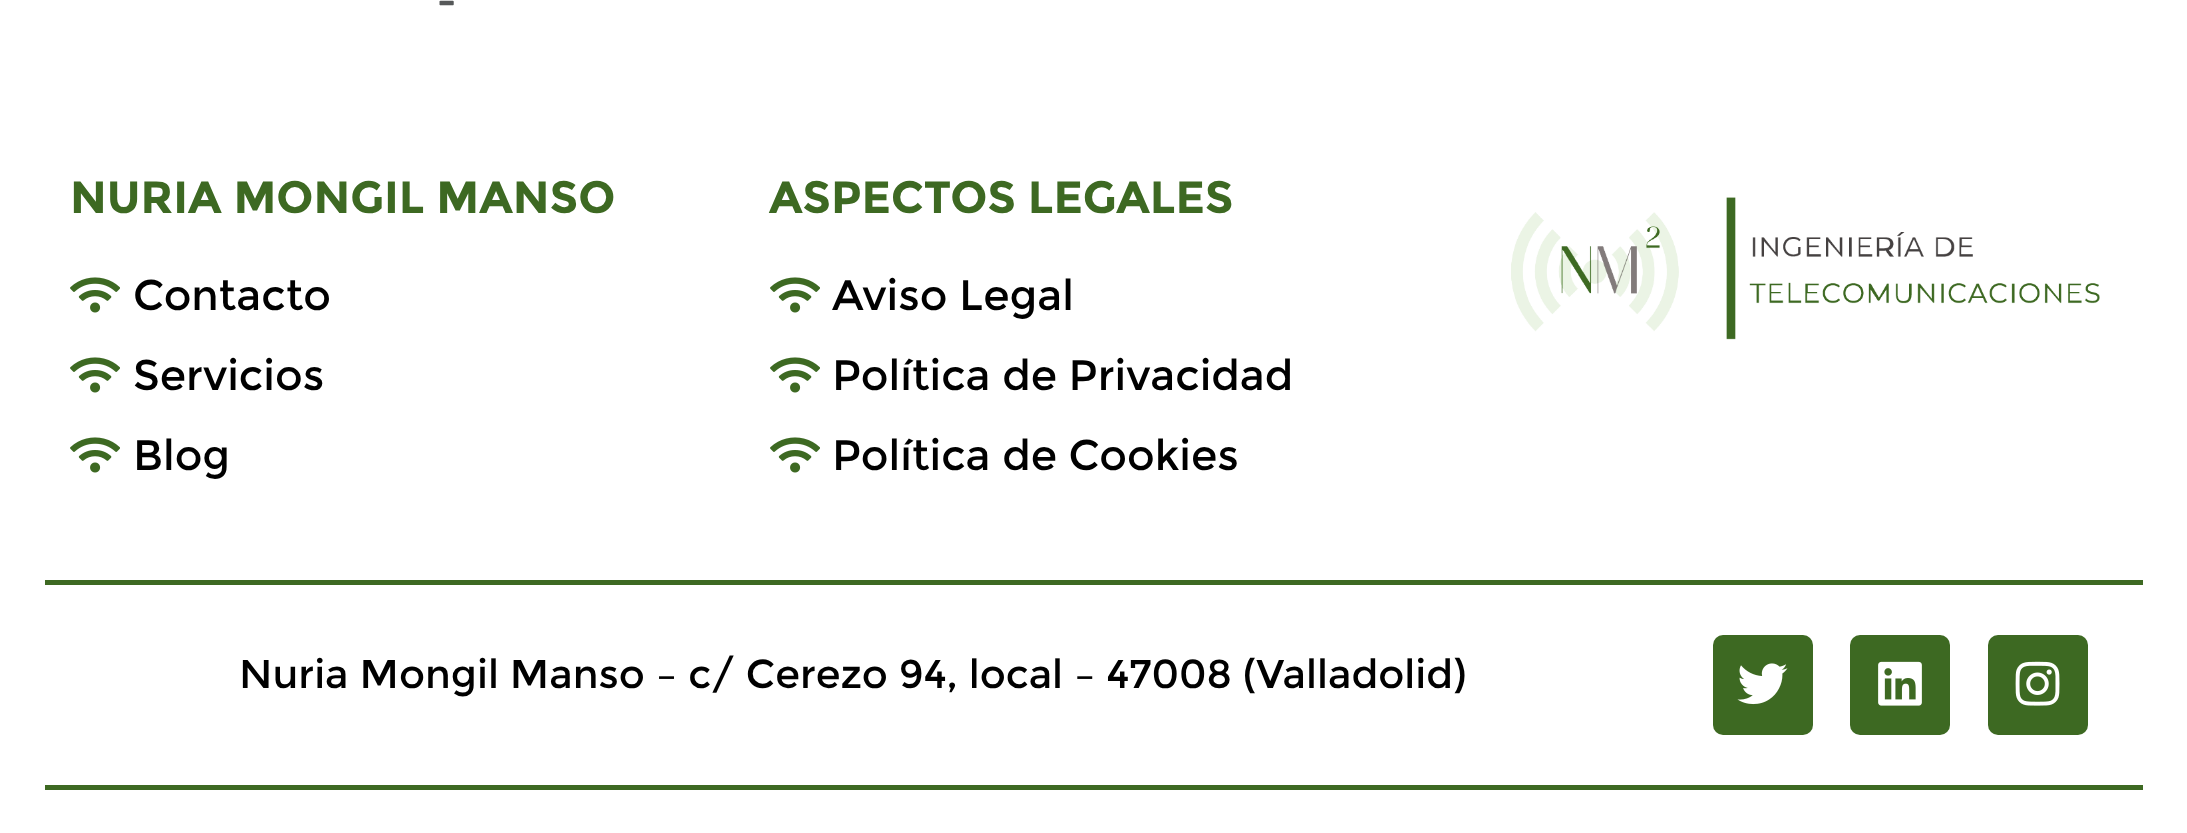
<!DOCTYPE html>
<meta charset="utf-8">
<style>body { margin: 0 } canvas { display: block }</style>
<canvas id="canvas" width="2187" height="833"></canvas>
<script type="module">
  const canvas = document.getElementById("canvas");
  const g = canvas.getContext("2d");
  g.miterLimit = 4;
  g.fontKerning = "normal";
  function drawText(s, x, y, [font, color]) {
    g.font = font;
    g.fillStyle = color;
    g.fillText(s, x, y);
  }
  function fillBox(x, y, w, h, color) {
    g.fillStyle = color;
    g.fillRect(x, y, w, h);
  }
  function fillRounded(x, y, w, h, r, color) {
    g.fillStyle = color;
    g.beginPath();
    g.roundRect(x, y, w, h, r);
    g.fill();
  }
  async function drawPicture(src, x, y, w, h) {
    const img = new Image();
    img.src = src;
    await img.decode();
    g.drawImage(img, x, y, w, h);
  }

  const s1 = ["500 40px Rubik", "#565859"];
  const s2 = ["bold 45px Montserrat", "#3D6922"];
  const s3 = ["42.5px Montserrat", "#000000"];
  const s4 = ["40px Montserrat", "#000000"];

  fillBox(0, 0, 2187, 833, "#FFFFFF");
  drawText("-", 437, 15, s1);
  drawText("NURIA MONGIL MANSO", 70, 213, s2);
  await drawPicture("pic1.png", 70, 277, 50, 36);
  drawText("Contacto", 133, 310, s3);
  await drawPicture("pic1.png", 70, 357, 50, 36);
  drawText("Servicios", 133, 390, s3);
  await drawPicture("pic1.png", 70, 437, 50, 36);
  drawText("Blog", 133, 470, s3);
  drawText("ASPECTOS LEGALES", 769, 213, s2);
  await drawPicture("pic1.png", 770, 277, 50, 36);
  drawText("Aviso Legal", 832, 310, s3);
  await drawPicture("pic1.png", 770, 357, 50, 36);
  drawText("Política de Privacidad", 832, 390, s3);
  await drawPicture("pic1.png", 770, 437, 50, 36);
  drawText("Política de Cookies", 832, 470, s3);
  await drawPicture("pic2.png", 1511, 197, 589, 143);
  fillBox(45, 580, 2098, 5, "#3D6922");
  fillBox(45, 785, 2098, 5, "#3D6922");
  drawText("Nuria Mongil Manso – c/ Cerezo 94, local – 47008 (Valladolid)", 239, 688, s4);
  fillRounded(1713, 635, 100, 100, 10, "#3D6922");
  await drawPicture("pic3.png", 1737, 663, 51, 42);
  fillRounded(1850, 635, 100, 100, 10, "#3D6922");
  await drawPicture("pic4.png", 1878, 661, 44, 45);
  fillRounded(1988, 635, 100, 100, 10, "#3D6922");
  await drawPicture("pic5.png", 2015, 661, 45, 45);
</script>
